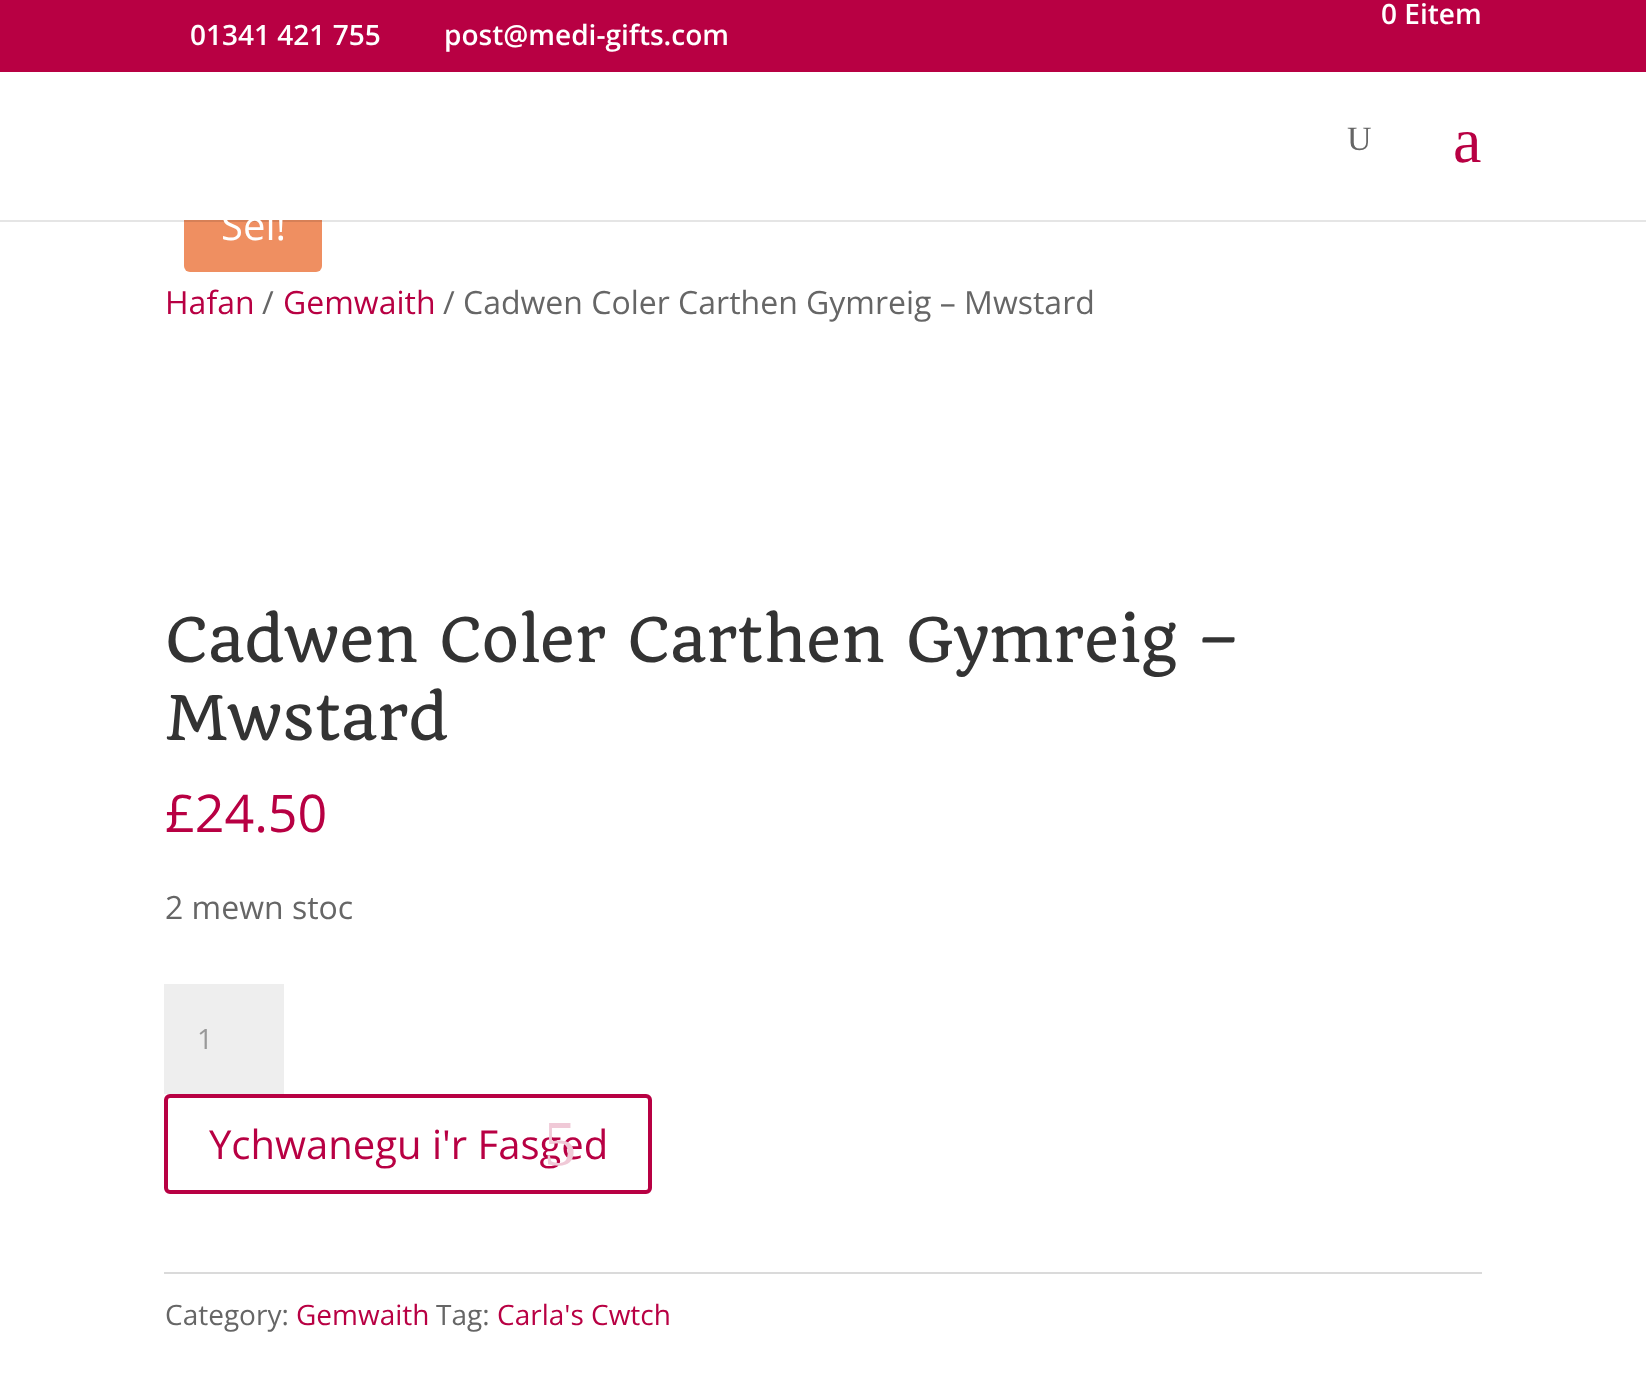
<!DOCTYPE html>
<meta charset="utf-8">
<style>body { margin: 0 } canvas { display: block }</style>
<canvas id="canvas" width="1646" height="1397"></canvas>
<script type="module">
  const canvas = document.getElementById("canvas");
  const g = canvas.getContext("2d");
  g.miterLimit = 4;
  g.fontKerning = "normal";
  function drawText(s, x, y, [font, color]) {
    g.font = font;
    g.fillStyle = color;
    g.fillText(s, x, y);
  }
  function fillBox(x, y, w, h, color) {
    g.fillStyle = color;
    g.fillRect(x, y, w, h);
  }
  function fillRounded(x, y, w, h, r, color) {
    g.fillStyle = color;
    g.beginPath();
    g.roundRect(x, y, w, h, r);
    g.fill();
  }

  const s1 = ["600 28px Open Sans", "#FFFFFF"];
  const s2 = ["34px Liberation Serif", "#666666"];
  const s3 = ["64px Liberation Serif", "#B80043"];
  const s4 = ["40px Open Sans", "#FFFFFF"];
  const s5 = ["60px Quando", "#333333"];
  const s6 = ["52px Open Sans", "#B80043"];
  const s7 = ["32px Open Sans", "#666666"];
  const s8 = ["28px Open Sans", "#999999"];
  const s9 = ["40px Open Sans", "#B80043"];
  const s10 = ["64px Liberation Serif", "#F0C9D7"];
  const s11 = ["28px Open Sans", "#666666"];
  const s12 = ["28px Open Sans", "#B80043"];
  const s13 = ["32px Open Sans", "#B80043"];

  fillBox(0, 0, 1646, 1397, "#FFFFFF");
  fillBox(0, 0, 1646, 72, "#B80043");
  drawText("0 Eitem", 1381, 24, s1);
  drawText("01341 421 755", 190, 45, s1);
  drawText("post@medi-gifts.com", 444, 45, s1);
  fillRounded(184, 180, 138, 92, 6, "#EF8F61");
  fillBox(0, 220, 1646, 2, "rgba(0, 0, 0, 0.1)");
  fillBox(184, 180, 138, 40, "#FFFFFF");
  drawText("U", 1347, 150, s2);
  drawText("a", 1453, 162, s3);
  drawText("Sêl!", 221, 240, s4);
  drawText("Cadwen Coler Carthen Gymreig –", 165, 662, s5);
  drawText("Mwstard", 165, 740, s5);
  drawText("£24.50", 165, 832, s6);
  drawText("2 mewn stoc", 165, 919, s7);
  fillBox(164, 984, 120, 110, "#EEEEEE");
  drawText("1", 197, 1049, s8);
  g.beginPath();
  g.roundRect(166, 1096, 484, 96, 4);
  g.strokeStyle = "#B80043";
  g.lineWidth = 4;
  g.stroke();
  drawText("Ychwanegu i'r Fasged", 209, 1159, s9);
  drawText("5", 544, 1165, s10);
  fillBox(164, 1272, 1318, 2, "#DADADA");
  drawText("Category:", 165, 1325, s11);
  drawText("Gemwaith", 296, 1325, s12);
  drawText("Tag:", 436, 1325, s11);
  drawText("Carla's Cwtch", 497, 1325, s12);
  drawText("Hafan", 165, 314, s13);
  drawText("/", 262, 314, s7);
  drawText("Gemwaith", 283, 314, s13);
  drawText("/ Cadwen Coler Carthen Gymreig – Mwstard", 443, 314, s7);
</script>
